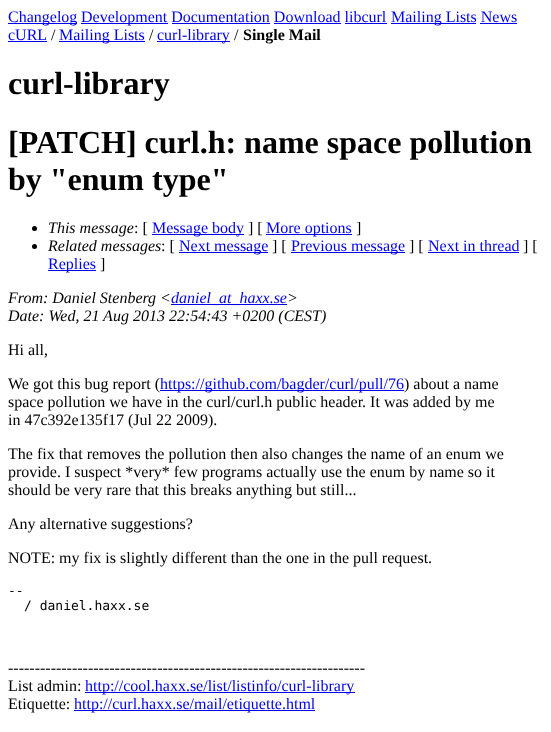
<!DOCTYPE html>
<meta charset="utf-8">
<style>body { margin: 0 } canvas { display: block }</style>
<canvas id="canvas" width="551" height="732"></canvas>
<script type="module">
  const canvas = document.getElementById("canvas");
  const g = canvas.getContext("2d");
  g.miterLimit = 4;
  g.fontKerning = "normal";
  function drawText(s, x, y, [font, color]) {
    g.font = font;
    g.fillStyle = color;
    g.fillText(s, x, y);
  }
  function fillBox(x, y, w, h, color) {
    g.fillStyle = color;
    g.fillRect(x, y, w, h);
  }

  const s1 = ["16px Liberation Serif", "#0000EE"];
  const s2 = ["16px Liberation Serif", "#000000"];
  const s3 = ["bold 16px Liberation Serif", "#000000"];
  const s4 = ["bold 32px Liberation Serif", "#000000"];
  const s5 = ["italic 16px Liberation Serif", "#000000"];
  const s6 = ["italic 16px Liberation Serif", "#0000EE"];
  const s7 = ["13px DejaVu Sans Mono", "#000000"];

  fillBox(0, 0, 551, 732, "#FFFFFF");
  fillBox(8, 23, 69, 1, "#0000EE");
  drawText("Changelog", 8, 22, s1);
  fillBox(81, 23, 87, 1, "#0000EE");
  drawText("Development Documentation Download libcurl", 81, 22, s1);
  fillBox(391, 23, 85, 1, "#0000EE");
  drawText("Mailing Lists News", 391, 22, s1);
  fillBox(172, 23, 98, 1, "#0000EE");
  fillBox(274, 23, 67, 1, "#0000EE");
  fillBox(345, 23, 42, 1, "#0000EE");
  fillBox(480, 23, 37, 1, "#0000EE");
  drawText("cURL", 8, 40, s1);
  fillBox(8, 41, 39, 1, "#0000EE");
  drawText("/", 51, 40, s2);
  fillBox(59, 41, 86, 1, "#0000EE");
  drawText("Mailing Lists", 59, 40, s1);
  drawText("/", 149, 40, s2);
  fillBox(157, 41, 73, 1, "#0000EE");
  drawText("curl-library", 157, 40, s1);
  drawText("/", 234, 40, s2);
  drawText("Single Mail", 243, 40, s3);
  drawText("curl-library", 8, 94, s4);
  drawText("[PATCH] curl.h: name space pollution", 8, 153, s4);
  drawText("by \"enum type\"", 8, 190, s4);
  g.beginPath();
  g.arc(34.5, 228.5, 2.5, 0, Math.PI * 2);
  g.fill();
  drawText("This message", 48, 233, s5);
  drawText(": [", 134, 233, s2);
  fillBox(152, 234, 92, 1, "#0000EE");
  drawText("Message body", 152, 233, s1);
  drawText("] [", 248, 233, s2);
  fillBox(266, 234, 86, 1, "#0000EE");
  drawText("More options", 266, 233, s1);
  drawText("]", 356, 233, s2);
  g.beginPath();
  g.arc(34.5, 246.5, 2.5, 0, Math.PI * 2);
  g.fill();
  drawText("Related messages", 48, 251, s5);
  drawText(": [", 161, 251, s2);
  fillBox(179, 252, 89, 1, "#0000EE");
  drawText("Next message", 179, 251, s1);
  drawText("] [", 272, 251, s2);
  fillBox(291, 252, 114, 1, "#0000EE");
  drawText("Previous message", 291, 251, s1);
  drawText("] [", 409, 251, s2);
  drawText("Next in thread", 428, 251, s1);
  fillBox(428, 252, 91, 1, "#0000EE");
  drawText("] [", 523, 251, s2);
  fillBox(48, 270, 48, 1, "#0000EE");
  drawText("Replies", 48, 269, s1);
  drawText("]", 100, 269, s2);
  drawText("From: Daniel Stenberg <", 8, 303, s5);
  fillBox(171, 304, 116, 1, "#0000EE");
  drawText("daniel_at_haxx.se", 171, 303, s6);
  drawText(">", 287, 303, s5);
  drawText("Date: Wed, 21 Aug 2013 22:54:43 +0200 (CEST)", 8, 321, s5);
  drawText("Hi all,", 8, 355, s2);
  drawText("We got this bug report (", 8, 389, s2);
  fillBox(160, 390, 244, 1, "#0000EE");
  drawText("https://github.com/bagder/curl/pull/76", 160, 389, s1);
  drawText(") about a name", 404, 389, s2);
  drawText("space pollution we have in the curl/curl.h public header. It was added by me", 8, 407, s2);
  drawText("in 47c392e135f17 (Jul 22 2009).", 8, 425, s2);
  drawText("The fix that removes the pollution then also changes the name of an enum we", 8, 459, s2);
  drawText("provide. I suspect *very* few programs actually use the enum by name so it", 8, 477, s2);
  drawText("should be very rare that this breaks anything but still...", 8, 495, s2);
  drawText("Any alternative suggestions?", 8, 529, s2);
  drawText("NOTE: my fix is slightly different than the one in the pull request.", 8, 563, s2);
  drawText("--", 8, 595, s7);
  drawText("/ daniel.haxx.se", 24, 610, s7);
  drawText("-------------------------------------------------------------------", 8, 673, s2);
  drawText("List admin:", 8, 691, s2);
  fillBox(85, 692, 270, 1, "#0000EE");
  drawText("http://cool.haxx.se/list/listinfo/curl-library", 85, 691, s1);
  drawText("Etiquette:", 8, 709, s2);
  fillBox(74, 710, 241, 1, "#0000EE");
  drawText("http://curl.haxx.se/mail/etiquette.html", 74, 709, s1);
</script>
